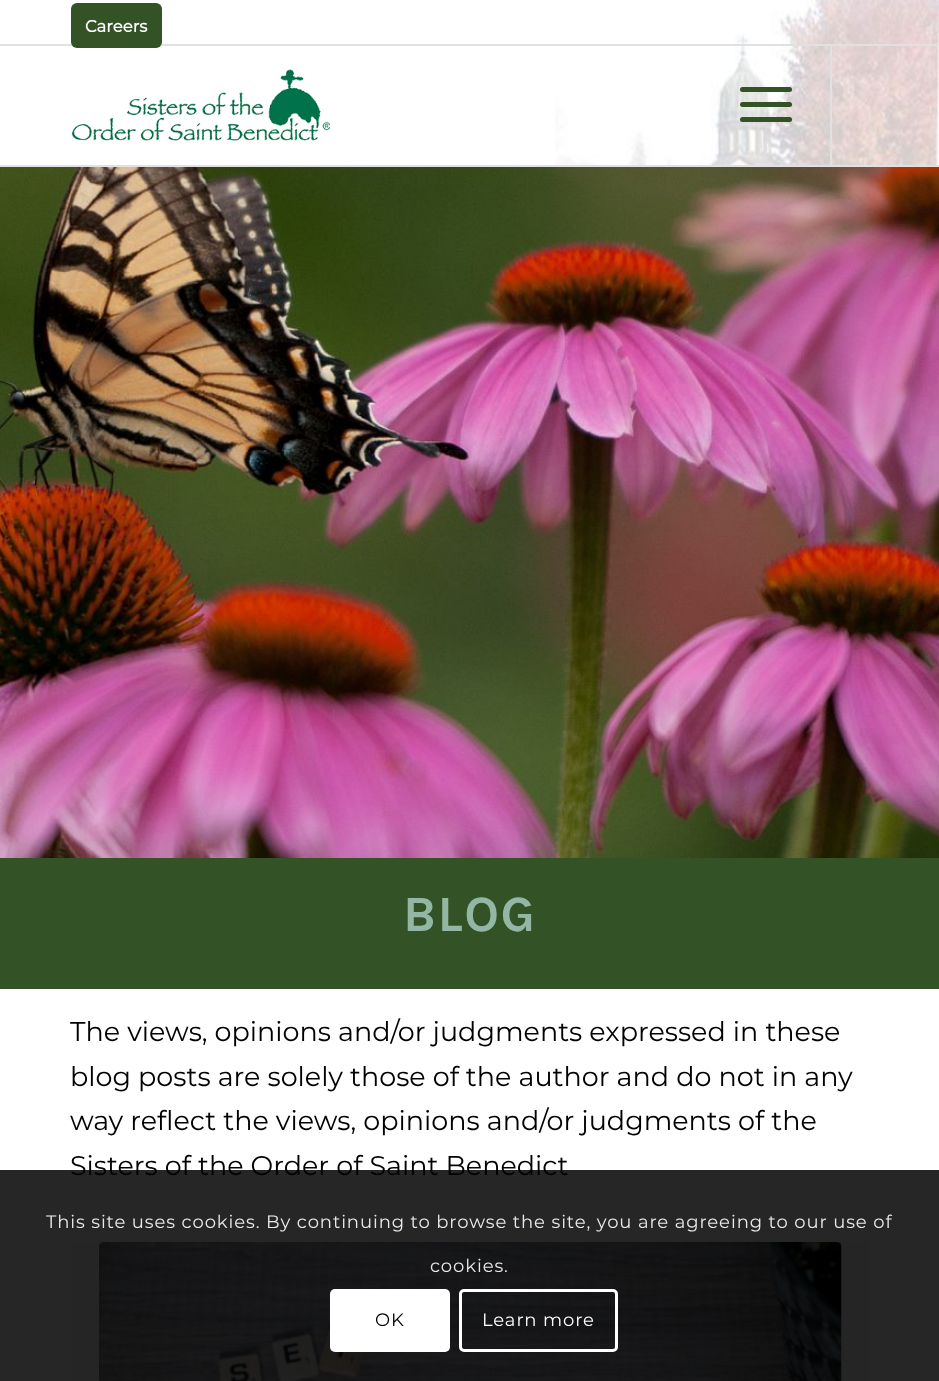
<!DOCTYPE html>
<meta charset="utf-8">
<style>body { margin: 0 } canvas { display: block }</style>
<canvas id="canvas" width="939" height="1381"></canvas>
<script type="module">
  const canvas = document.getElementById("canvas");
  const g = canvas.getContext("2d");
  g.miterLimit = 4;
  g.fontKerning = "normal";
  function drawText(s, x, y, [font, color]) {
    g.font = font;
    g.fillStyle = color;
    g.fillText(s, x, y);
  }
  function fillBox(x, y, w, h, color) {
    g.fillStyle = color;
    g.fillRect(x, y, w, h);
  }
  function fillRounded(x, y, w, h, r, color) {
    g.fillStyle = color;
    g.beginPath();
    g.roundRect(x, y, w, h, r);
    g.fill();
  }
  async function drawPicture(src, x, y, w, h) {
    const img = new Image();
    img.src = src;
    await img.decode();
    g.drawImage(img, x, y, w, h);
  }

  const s1 = ["bold 16.5px Montserrat", "#FFFFFF"];
  const s2 = ["bold 51px Karla", "#93B7A4"];
  const s3 = ["100 27px Montserrat", "#000000"];
  const s4 = ["100 18px Montserrat", "#E9E9E9"];
  const s5 = ["100 18px Montserrat", "#000000"];
  const s6 = ["100 18px Montserrat", "#FFFFFF"];

  fillBox(0, 0, 939, 1381, "#FFFFFF");
  await drawPicture("pic1.png", 555, 0, 384, 165);
  fillBox(0, 44, 939, 2, "#E1E1E1");
  fillRounded(71, 3, 91, 45, 6, "#335226");
  drawText("Careers", 85, 32, s1);
  fillBox(0, 165, 939, 2, "#E1E1E1");
  await drawPicture("pic2.png", 72, 69, 258, 72);
  fillBox(830, 45, 2, 120, "#E1E1E1");
  fillRounded(740, 102, 52, 5, 2.5, "#335226");
  fillRounded(740, 87, 52, 5, 2.5, "#335226");
  fillRounded(740, 117, 52, 5, 2.5, "#335226");
  await drawPicture("pic3.png", 0, 167, 939, 691);
  fillBox(0, 858, 939, 131, "#335226");
  g.letterSpacing = "1.5px";
  drawText("BLOG", 403, 931, s2);
  g.letterSpacing = "0px";
  drawText("The views, opinions and/or judgments expressed in these", 70, 1041, s3);
  drawText("blog posts are solely those of the author and do not in any", 70, 1086, s3);
  drawText("way reflect the views, opinions and/or judgments of the", 70, 1130, s3);
  drawText("Sisters of the Order of Saint Benedict", 70, 1175, s3);
  fillRounded(71, 1242, 798, 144, 5, "#F8F8F8");
  await drawPicture("pic4.png", 99, 1242, 743, 139);
  fillBox(0, 1170, 939, 211, "rgba(0, 0, 0, 0.85)");
  g.letterSpacing = "0.9px";
  drawText("This site uses cookies. By continuing to browse the site, you are agreeing to our use of", 46, 1228, s4);
  drawText("cookies.", 430, 1272, s4);
  fillRounded(330, 1289, 120, 63, 5, "#FFFFFF");
  drawText("OK", 375, 1326, s5);
  g.beginPath();
  g.roundRect(460.5, 1290.5, 156, 60, 3.5);
  g.strokeStyle = "#FFFFFF";
  g.lineWidth = 3;
  g.stroke();
  drawText("Learn more", 482, 1326, s6);
</script>
